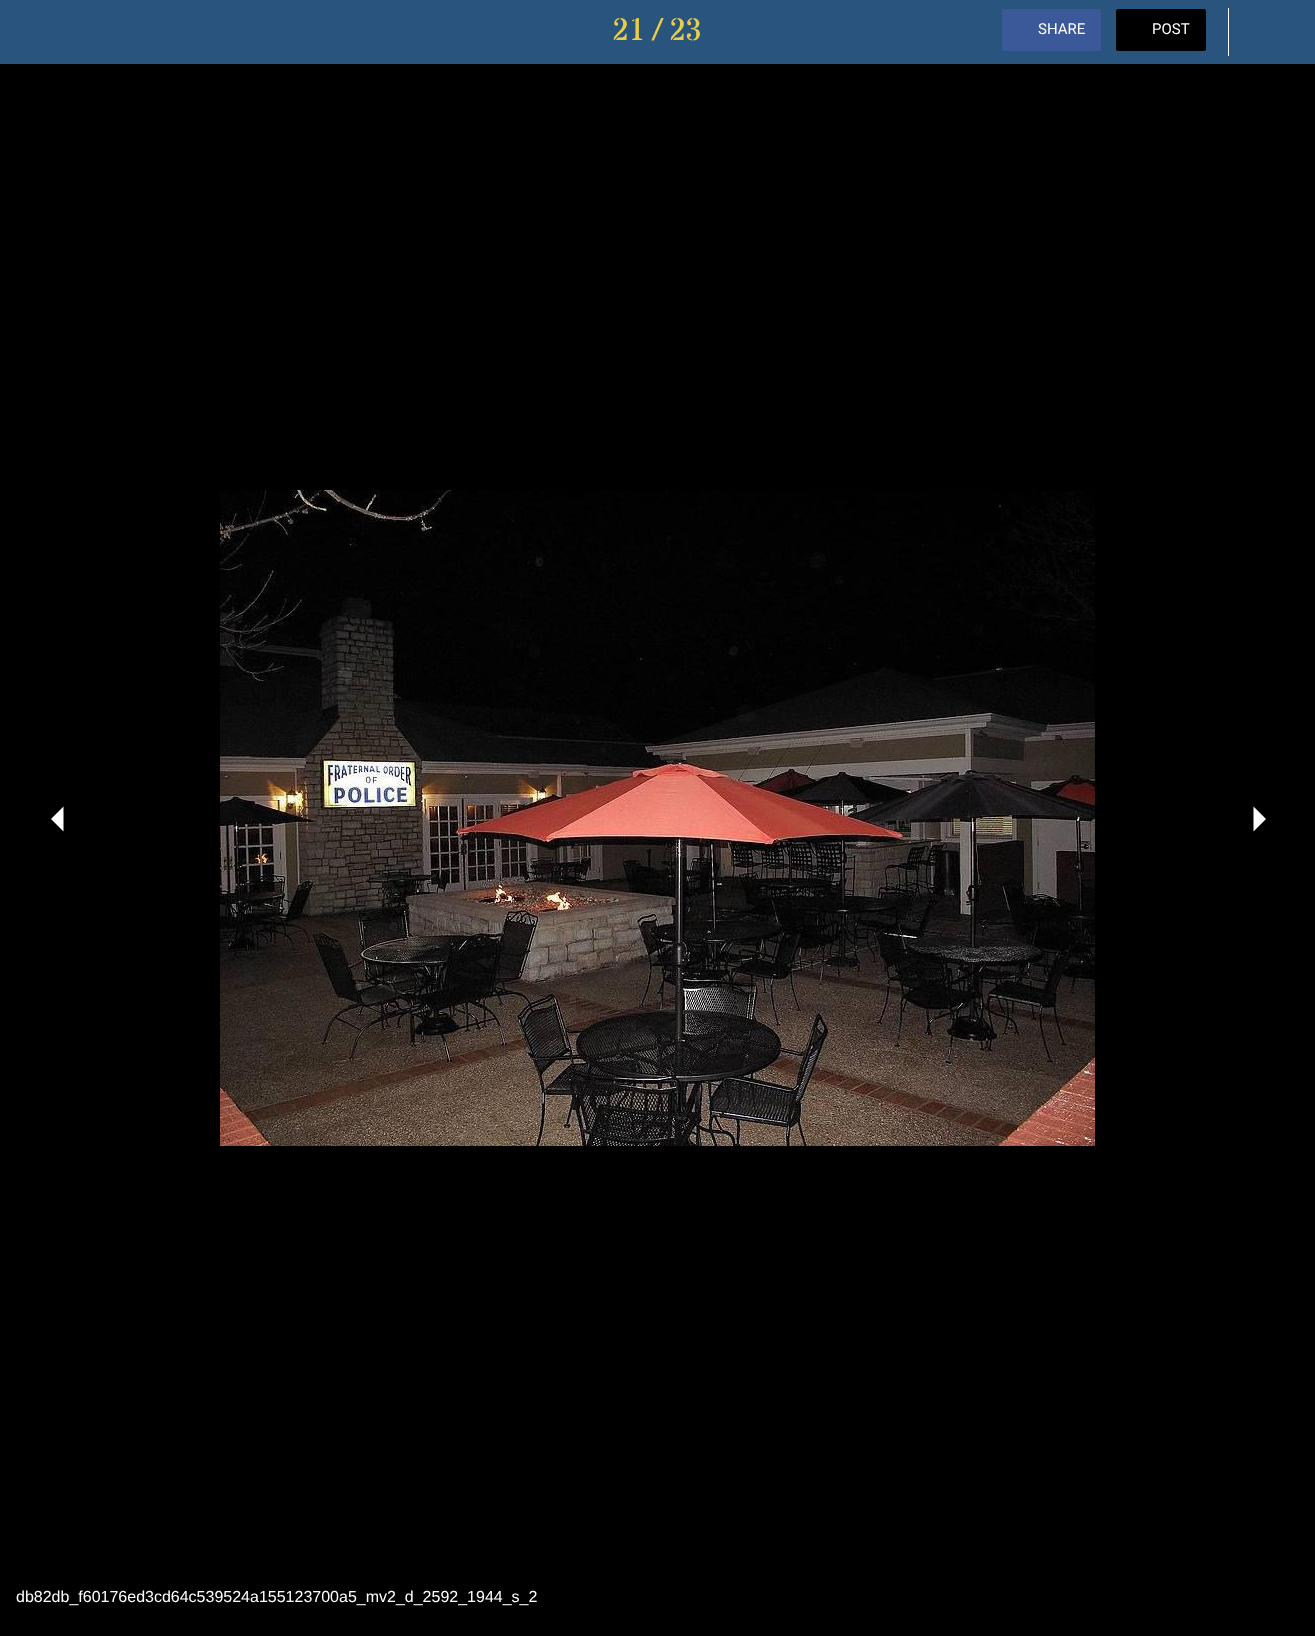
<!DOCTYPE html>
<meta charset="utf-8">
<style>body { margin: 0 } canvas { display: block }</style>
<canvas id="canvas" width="1315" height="1636"></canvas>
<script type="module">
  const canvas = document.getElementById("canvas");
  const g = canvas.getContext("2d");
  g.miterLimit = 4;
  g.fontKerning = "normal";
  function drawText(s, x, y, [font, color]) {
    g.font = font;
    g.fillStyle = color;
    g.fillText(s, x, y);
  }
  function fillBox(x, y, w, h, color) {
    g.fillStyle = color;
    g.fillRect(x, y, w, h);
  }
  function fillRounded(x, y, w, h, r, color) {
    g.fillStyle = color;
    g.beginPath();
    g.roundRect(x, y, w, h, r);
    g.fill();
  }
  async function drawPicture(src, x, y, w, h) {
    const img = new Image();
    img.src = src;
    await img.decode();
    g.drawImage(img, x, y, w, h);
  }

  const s1 = ["31px Stardos Stencil", "#E8CD48"];
  const s2 = ["15px Roboto", "#FFFFFF"];
  const s3 = ["16px Liberation Sans", "#FFFFFF"];

  fillBox(0, 0, 1315, 1636, "#000000");
  fillBox(0, 0, 1315, 64, "#29547E");
  drawText("21 / 23", 613, 40, s1);
  fillRounded(1002, 9, 99, 42, 2, "#3B5999");
  drawText("SHARE", 1038, 34, s2);
  fillBox(1228, 8, 1, 48, "#FFFFFF");
  fillRounded(1116, 9, 90, 42, 2, "#000000");
  drawText("POST", 1152, 34, s2);
  await drawPicture("pic1.png", 220, 490, 875, 656);
  g.beginPath();
  g.moveTo(63.5, 806.5);
  g.lineTo(51, 819);
  g.lineTo(63.5, 831.5);
  g.closePath();
  g.fill();
  g.beginPath();
  g.moveTo(1253.5, 831.5);
  g.lineTo(1266, 819);
  g.lineTo(1253.5, 806.5);
  g.closePath();
  g.fill();
  drawText("db82db_f60176ed3cd64c539524a155123700a5_mv2_d_2592_1944_s_2", 16, 1602, s3);
</script>
